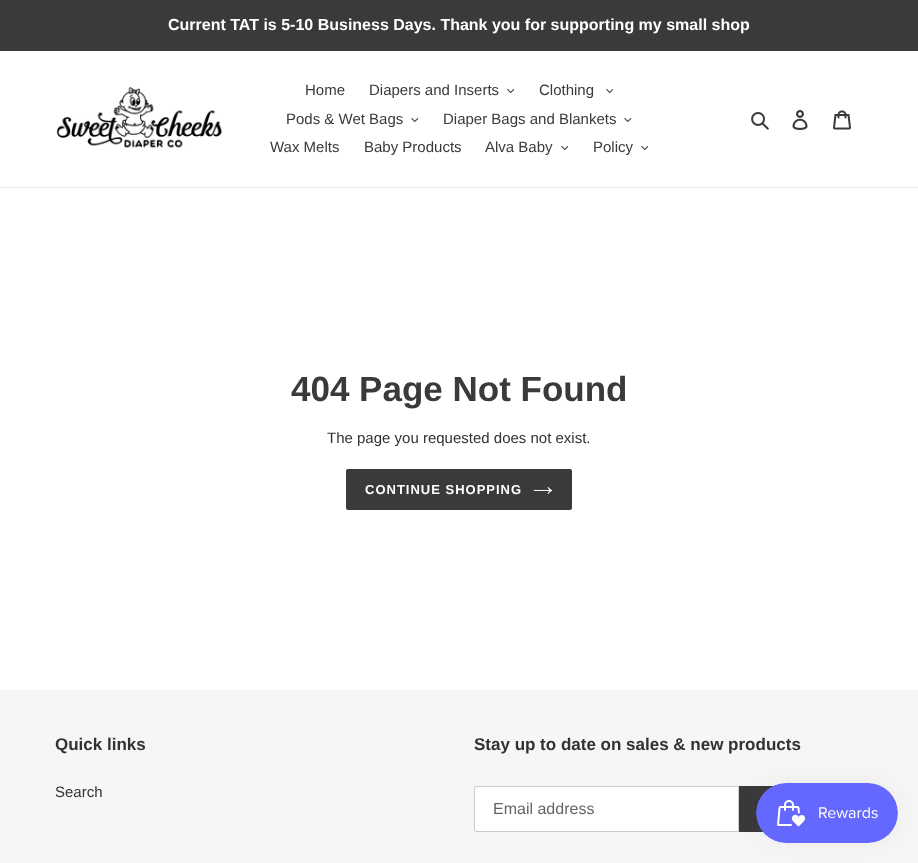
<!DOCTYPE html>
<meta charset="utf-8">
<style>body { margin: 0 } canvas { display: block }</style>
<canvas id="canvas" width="918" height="863"></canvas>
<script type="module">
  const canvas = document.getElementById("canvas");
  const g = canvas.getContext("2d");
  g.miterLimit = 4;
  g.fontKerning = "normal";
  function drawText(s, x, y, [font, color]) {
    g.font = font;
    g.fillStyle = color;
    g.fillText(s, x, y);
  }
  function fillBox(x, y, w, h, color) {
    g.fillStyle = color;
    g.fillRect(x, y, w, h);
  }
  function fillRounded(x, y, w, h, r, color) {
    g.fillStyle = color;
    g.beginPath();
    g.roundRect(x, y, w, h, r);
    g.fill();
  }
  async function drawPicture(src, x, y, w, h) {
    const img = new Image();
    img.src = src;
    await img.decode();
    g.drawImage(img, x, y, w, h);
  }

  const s1 = ["bold 16px Liberation Sans", "#FFFFFF"];
  const s2 = ["15px Liberation Sans", "#3A3A3A"];
  const s3 = ["bold 35px Liberation Sans", "#3A3A3A"];
  const s4 = ["15px Liberation Sans", "#333232"];
  const s5 = ["bold 13px Liberation Sans", "#FFFFFF"];
  const s6 = ["bold 17px Liberation Sans", "#333232"];
  const s7 = ["16px Liberation Sans", "#666666"];

  fillBox(0, 0, 918, 863, "#FFFFFF");
  fillBox(0, 0, 918, 51, "#3A3A3A");
  drawText("Current TAT is 5-10 Business Days. Thank you for supporting my small shop", 168, 30, s1);
  fillBox(0, 187, 918, 1, "#EBEBEB");
  await drawPicture("pic1.png", 56, 87, 167, 61);
  drawText("Home", 305, 95, s2);
  drawText("Diapers and Inserts", 369, 95, s2);
  await drawPicture("pic2.png", 507, 89, 7, 4);
  drawText("Clothing", 539, 95, s2);
  await drawPicture("pic2.png", 606, 89, 7, 4);
  drawText("Pods & Wet Bags", 286, 124, s2);
  await drawPicture("pic3.png", 411, 118, 8, 4);
  drawText("Diaper Bags and Blankets", 443, 124, s2);
  await drawPicture("pic3.png", 624, 118, 8, 4);
  drawText("Wax Melts", 270, 152, s2);
  drawText("Baby Products", 364, 152, s2);
  drawText("Alva Baby", 485, 152, s2);
  await drawPicture("pic2.png", 561, 146, 7, 4);
  drawText("Policy", 593, 152, s2);
  await drawPicture("pic2.png", 641, 146, 7, 4);
  await drawPicture("pic4.png", 751, 112, 18, 18);
  await drawPicture("pic5.png", 792, 110, 16, 20);
  await drawPicture("pic6.png", 833, 110, 18, 20);
  drawText("404 Page Not Found", 291, 401, s3);
  drawText("The page you requested does not exist.", 327, 443, s4);
  fillRounded(346, 469, 226, 41, 2, "#3A3A3A");
  g.letterSpacing = "1px";
  drawText("CONTINUE SHOPPING", 365, 494, s5);
  await drawPicture("pic7.png", 533, 486, 20, 8);
  fillBox(0, 690, 918, 173, "#F6F6F6");
  g.letterSpacing = "0px";
  drawText("Quick links", 55, 750, s6);
  drawText("Search", 55, 797, s4);
  drawText("Stay up to date on sales & new products", 474, 750, s6);
  g.fillStyle = "#FFFFFF";
  g.beginPath();
  g.roundRect(474.5, 786.5, 264, 45, [1.5, 0, 0, 1.5]);
  g.fill();
  g.strokeStyle = "#CCCCCC";
  g.stroke();
  drawText("Email address", 493, 814, s7);
  fillBox(739, 786, 35, 46, "#3A3A3A");
  g.fillStyle = "rgba(0, 0, 0, 0.05)";
  g.filter = "blur(12.5px)";
  g.beginPath();
  g.roundRect(756, 783, 142, 60, 30);
  g.fill();
  g.filter = "none";
  await drawPicture("pic8.png", 756, 783, 142, 60);
</script>
